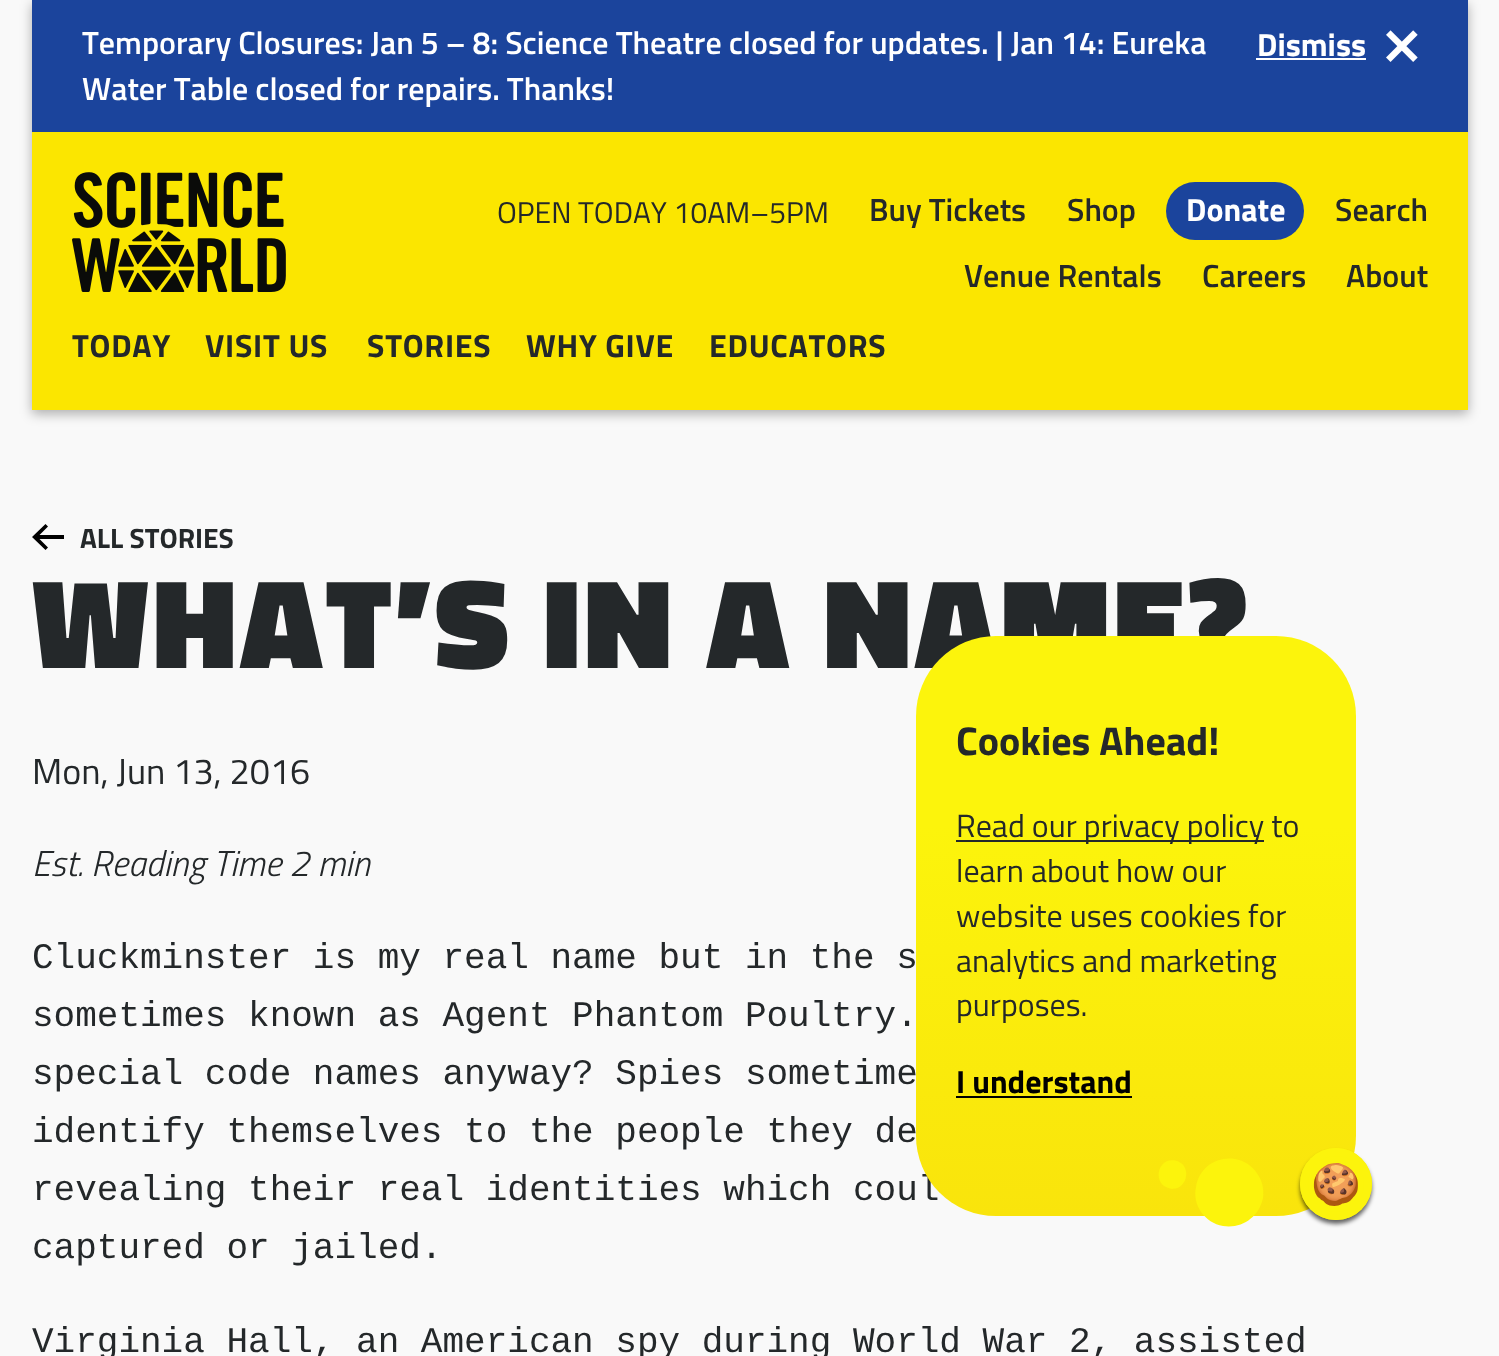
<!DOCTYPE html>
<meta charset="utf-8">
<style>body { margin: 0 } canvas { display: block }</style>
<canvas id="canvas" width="1499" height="1356"></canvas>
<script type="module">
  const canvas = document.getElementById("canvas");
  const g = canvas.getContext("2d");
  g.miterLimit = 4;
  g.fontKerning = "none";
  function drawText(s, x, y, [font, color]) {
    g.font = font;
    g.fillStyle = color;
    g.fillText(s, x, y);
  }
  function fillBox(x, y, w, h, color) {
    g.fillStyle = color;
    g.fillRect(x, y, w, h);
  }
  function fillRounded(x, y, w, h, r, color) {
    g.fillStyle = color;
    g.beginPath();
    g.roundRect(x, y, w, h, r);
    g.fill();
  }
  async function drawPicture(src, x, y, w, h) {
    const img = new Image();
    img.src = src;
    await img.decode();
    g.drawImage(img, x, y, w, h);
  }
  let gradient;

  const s1 = ["600 32px Titillium Web", "#FFFFFF"];
  const s2 = ["bold 32px Titillium Web", "#FFFFFF"];
  const s3 = ["30px Titillium Web", "#24282A"];
  const s4 = ["600 32px Titillium Web", "#24282A"];
  const s5 = ["bold 32px Titillium Web", "#24282A"];
  const s6 = ["bold 28px Titillium Web", "#24282A"];
  const s7 = ["900 128px Titillium Web", "#24282A"];
  const s8 = ["36px Titillium Web", "#24282A"];
  const s9 = ["italic 300 36px Titillium Web", "#24282A"];
  const s10 = ["36px Liberation Mono", "#24282A"];
  const s11 = ["bold 40px Titillium Web", "#24282A"];
  const s12 = ["32px Titillium Web", "#24282A"];
  const s13 = ["bold 32px Titillium Web", "#000000"];
  const s14 = ["40px Noto Color Emoji", "#24282A"];

  fillBox(0, 0, 1499, 1356, "#F9F9F9");
  g.fillStyle = "rgba(0, 0, 0, 0.3)";
  g.filter = "blur(6px)";
  g.beginPath();
  g.rect(32, 4, 1436, 410);
  g.fill();
  g.filter = "none";
  fillBox(32, 132, 1436, 278, "#FBE600");
  fillBox(32, 0, 1436, 132, "#1B449C");
  drawText("Temporary Closures: Jan 5 – 8: Science Theatre closed for updates. | Jan 14: Eureka", 82, 54, s1);
  drawText("Water Table closed for repairs. Thanks!", 82, 100, s1);
  drawText("Dismiss", 1257, 56, s2);
  fillBox(1256, 58, 110, 2, "#FFFFFF");
  await drawPicture("pic1.png", 1386, 30, 32, 32);
  await drawPicture("pic2.png", 72, 172, 214, 120);
  drawText("OPEN TODAY 10AM–5PM", 497, 223, s3);
  drawText("Buy Tickets", 869, 221, s4);
  drawText("Shop", 1067, 221, s4);
  fillRounded(1166, 182, 138, 58, 29, "#1B449C");
  drawText("Donate", 1186, 221, s2);
  drawText("Search", 1335, 221, s4);
  drawText("Venue Rentals", 964, 287, s4);
  drawText("Careers", 1202, 287, s4);
  drawText("About", 1346, 287, s4);
  g.letterSpacing = "0.75px";
  drawText("TODAY", 72, 357, s5);
  drawText("VISIT US", 205, 357, s5);
  drawText("STORIES", 367, 357, s5);
  drawText("WHY GIVE", 526, 357, s5);
  drawText("EDUCATORS", 709, 357, s5);
  g.fillStyle = "#000000";
  g.beginPath();
  g.moveTo(45.5, 550);
  g.lineTo(48, 547.5);
  g.lineTo(39.5, 539);
  g.lineTo(64, 539);
  g.lineTo(64, 535);
  g.lineTo(39.5, 535);
  g.lineTo(48, 526.5);
  g.lineTo(45.5, 524);
  g.lineTo(32, 537);
  g.closePath();
  g.fill("evenodd");
  g.letterSpacing = "0px";
  drawText("ALL STORIES", 80, 548, s6);
  g.letterSpacing = "3.6px";
  drawText("WHAT’S IN A NAME?", 32, 668, s7);
  g.letterSpacing = "0px";
  drawText("Mon, Jun 13, 2016", 32, 784, s8);
  drawText("Est. Reading Time 2 min", 32, 876, s9);
  drawText("Cluckminster is my real name but in the s", 32, 968, s10);
  drawText("sometimes known as Agent Phantom Poultry.", 32, 1026, s10);
  drawText("special code names anyway? Spies sometime", 32, 1084, s10);
  drawText("identify themselves to the people they de", 32, 1142, s10);
  drawText("revealing their real identities which coul", 32, 1200, s10);
  drawText("captured or jailed.", 32, 1258, s10);
  drawText("Virginia Hall, an American spy during World War 2, assisted", 32, 1352, s10);
  gradient = g.createLinearGradient(1136, 636, 1136, 1216);
  gradient.addColorStop(0.33, "#FCF40C");
  gradient.addColorStop(1, "#F9E40C");
  g.fillStyle = gradient;
  g.beginPath();
  g.roundRect(916, 636, 440, 580, 80);
  g.fill();
  drawText("Cookies Ahead!", 956, 755, s11);
  fillBox(956, 840, 308, 2, "#24282A");
  drawText("Read our privacy policy to", 956, 837, s12);
  drawText("learn about how our", 956, 882, s12);
  drawText("website uses cookies for", 956, 927, s12);
  drawText("analytics and marketing", 956, 972, s12);
  drawText("purposes.", 956, 1016, s12);
  drawText("I understand", 956, 1093, s13);
  fillBox(956, 1096, 176, 2, "#000000");
  g.fillStyle = "#FCF40C";
  g.beginPath();
  g.moveTo(1170, 1188.5);
  g.bezierCurveTo(1152, 1185, 1156.5, 1157.5, 1175, 1160.5);
  g.bezierCurveTo(1193, 1164, 1188, 1191.5, 1170, 1188.5);
  g.closePath();
  g.fill();
  g.beginPath();
  g.moveTo(1223, 1226);
  g.bezierCurveTo(1205, 1223, 1192, 1205, 1196, 1187);
  g.bezierCurveTo(1199, 1168, 1216, 1156, 1235, 1159);
  g.bezierCurveTo(1253, 1162, 1266, 1180, 1263, 1198);
  g.bezierCurveTo(1259, 1217, 1242, 1229, 1223, 1226);
  g.closePath();
  g.fill();
  g.fillStyle = "rgba(0, 0, 0, 0.6)";
  g.filter = "blur(2px)";
  g.beginPath();
  g.roundRect(1300, 1152, 72, 72, 36);
  g.fill();
  g.filter = "none";
  g.fillStyle = "#FCF40C";
  g.beginPath();
  g.arc(1336, 1184, 36, 0, Math.PI * 2);
  g.fill();
  drawText("🍪", 1311, 1198, s14);
  g.beginPath();
  g.arc(1336, 1184, 32, 0, Math.PI * 2);
  g.strokeStyle = "#FCF40C";
  g.lineWidth = 8;
  g.stroke();
</script>
